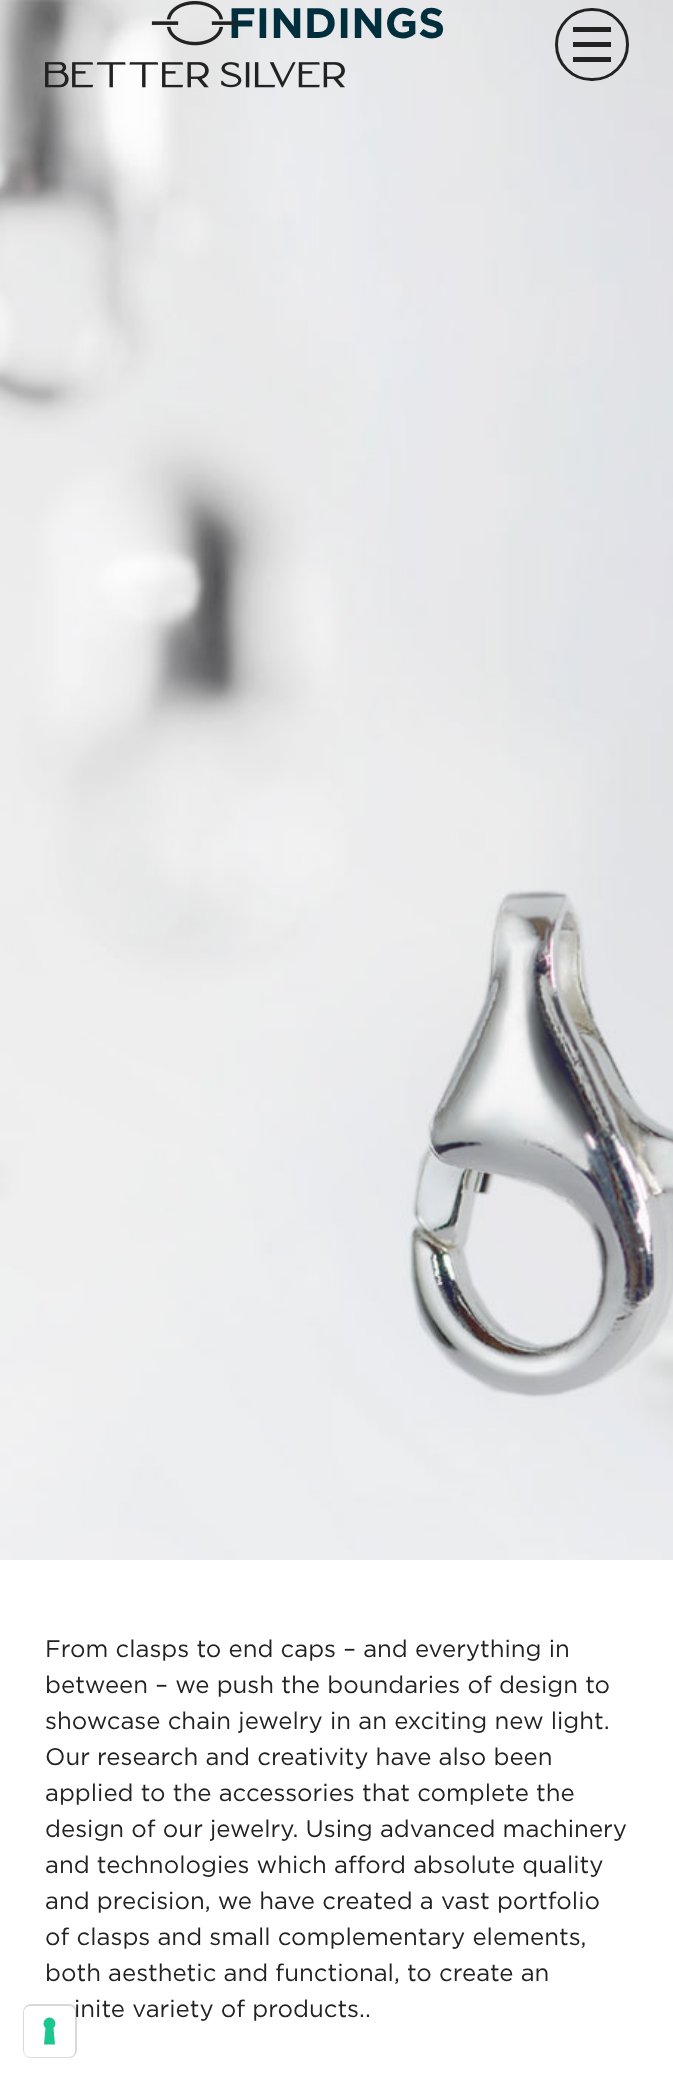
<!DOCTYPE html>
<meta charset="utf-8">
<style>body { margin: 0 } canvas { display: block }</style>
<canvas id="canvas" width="673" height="2080"></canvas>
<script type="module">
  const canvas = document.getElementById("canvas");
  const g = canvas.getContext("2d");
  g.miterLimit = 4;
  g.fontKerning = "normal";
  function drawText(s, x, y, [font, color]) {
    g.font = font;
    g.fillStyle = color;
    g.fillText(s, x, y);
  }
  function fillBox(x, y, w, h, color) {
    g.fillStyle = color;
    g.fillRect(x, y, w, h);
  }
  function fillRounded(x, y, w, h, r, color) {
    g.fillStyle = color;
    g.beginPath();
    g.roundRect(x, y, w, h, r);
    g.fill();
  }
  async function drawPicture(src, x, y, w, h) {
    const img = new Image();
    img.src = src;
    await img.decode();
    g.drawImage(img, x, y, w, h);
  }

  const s1 = ["bold 42.5px Gotham", "#002E3D"];
  const s2 = ["24px Gotham", "#222222"];

  fillBox(0, 0, 673, 2080, "#FFFFFF");
  await drawPicture("pic2.png", 0, 0, 673, 1560);
  drawText("FINDINGS", 228, 38, s1);
  await drawPicture("pic1.png", 45, 1, 300, 87);
  g.beginPath();
  g.roundRect(556.5, 9.5, 71, 70, 35);
  g.strokeStyle = "#222222";
  g.lineWidth = 3;
  g.stroke();
  fillBox(573, 27, 38, 5, "#222222");
  fillBox(573, 42, 38, 5, "#222222");
  fillBox(573, 57, 38, 5, "#222222");
  drawText("From clasps to end caps – and everything in", 45, 1657, s2);
  drawText("between – we push the boundaries of design to", 45, 1693, s2);
  drawText("showcase chain jewelry in an exciting new light.", 45, 1729, s2);
  drawText("Our research and creativity have also been", 45, 1765, s2);
  drawText("applied to the accessories that complete the", 45, 1801, s2);
  drawText("design of our jewelry. Using advanced machinery", 45, 1837, s2);
  drawText("and technologies which afford absolute quality", 45, 1873, s2);
  drawText("and precision, we have created a vast portfolio", 45, 1909, s2);
  drawText("of clasps and small complementary elements,", 45, 1945, s2);
  drawText("both aesthetic and functional, to create an", 45, 1981, s2);
  drawText("inite variety of products..", 74, 2017, s2);
  g.beginPath();
  g.roundRect(24, 2005, 52, 52, 7);
  g.strokeStyle = "rgba(0, 0, 0, 0.15)";
  g.lineWidth = 2;
  g.stroke();
  fillRounded(24, 2006, 51, 51, 6, "#FFFFFF");
  g.fillStyle = "#1CC691";
  g.beginPath();
  g.moveTo(49.5, 2017.5);
  g.bezierCurveTo(55, 2017.5, 57.5, 2024.5, 53.5, 2028);
  g.lineTo(55, 2044.5);
  g.lineTo(44, 2044.5);
  g.lineTo(45.5, 2028);
  g.bezierCurveTo(41.5, 2024.5, 44, 2017.5, 49.5, 2017.5);
  g.closePath();
  g.fill("evenodd");
</script>
